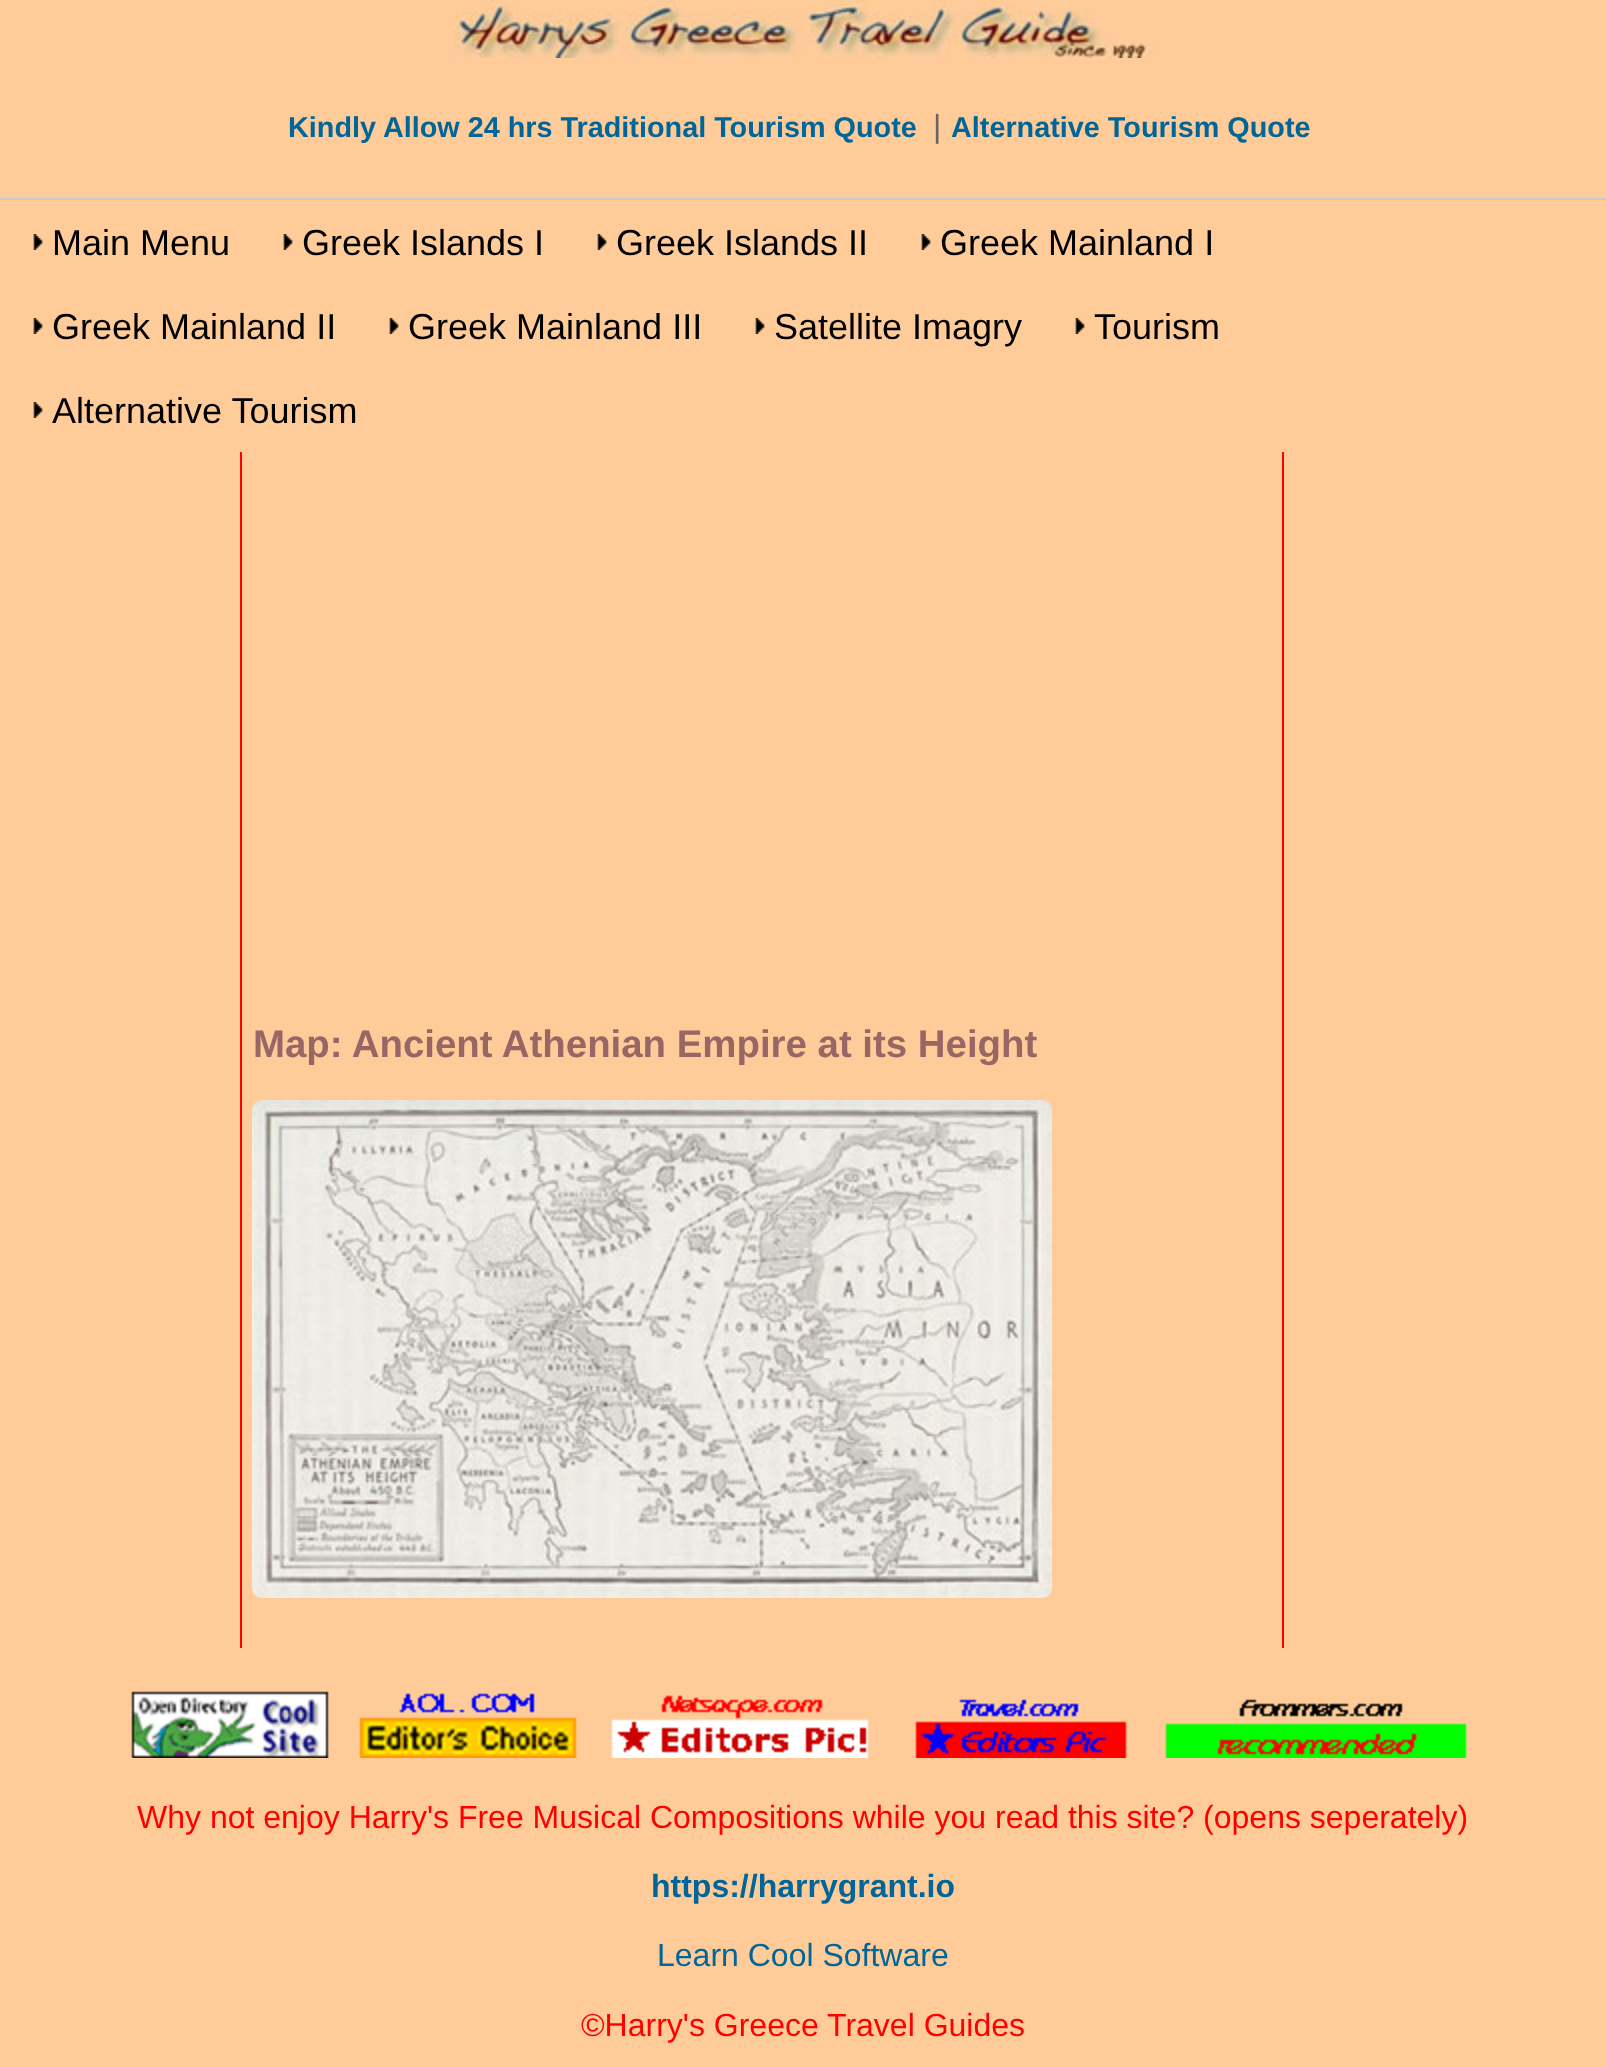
<!DOCTYPE html>
<meta charset="utf-8">
<style>body { margin: 0 } canvas { display: block }</style>
<canvas id="canvas" width="1606" height="2067"></canvas>
<script type="module">
  const canvas = document.getElementById("canvas");
  const g = canvas.getContext("2d");
  g.miterLimit = 4;
  g.fontKerning = "normal";
  function drawText(s, x, y, [font, color]) {
    g.font = font;
    g.fillStyle = color;
    g.fillText(s, x, y);
  }
  function fillBox(x, y, w, h, color) {
    g.fillStyle = color;
    g.fillRect(x, y, w, h);
  }
  async function drawPicture(src, x, y, w, h) {
    const img = new Image();
    img.src = src;
    await img.decode();
    g.drawImage(img, x, y, w, h);
  }

  const s1 = ["bold 28.8px Liberation Sans", "#006699"];
  const s2 = ["32px Liberation Sans", "#666666"];
  const s3 = ["36px Liberation Sans", "#000000"];
  const s4 = ["bold 38.4px Liberation Sans", "#996666"];
  const s5 = ["32px Liberation Sans", "#FF0000"];
  const s6 = ["bold 32px Liberation Sans", "#006699"];
  const s7 = ["32px Liberation Sans", "#006699"];

  fillBox(0, 0, 1606, 2067, "#FFCC99");
  await drawPicture("pic1.png", 454, 0, 700, 58);
  fillBox(0, 198, 1606, 2, "#CCCCCC");
  drawText("Kindly Allow 24 hrs Traditional Tourism Quote", 288, 137, s1);
  drawText("|", 933, 137, s2);
  drawText("Alternative Tourism Quote", 951, 137, s1);
  await drawPicture("pic2.png", 33, 234, 10, 16);
  drawText("Main Menu", 52, 255, s3);
  await drawPicture("pic2.png", 283, 234, 10, 16);
  drawText("Greek Islands I", 302, 255, s3);
  await drawPicture("pic2.png", 597, 234, 10, 16);
  drawText("Greek Islands II", 616, 255, s3);
  await drawPicture("pic2.png", 921, 234, 10, 16);
  drawText("Greek Mainland I", 940, 255, s3);
  await drawPicture("pic2.png", 33, 318, 10, 16);
  drawText("Greek Mainland II", 52, 339, s3);
  await drawPicture("pic2.png", 389, 318, 10, 16);
  drawText("Greek Mainland III", 408, 339, s3);
  await drawPicture("pic2.png", 755, 318, 10, 16);
  drawText("Satellite Imagry", 774, 339, s3);
  await drawPicture("pic2.png", 1075, 318, 10, 16);
  drawText("Tourism", 1094, 339, s3);
  await drawPicture("pic2.png", 33, 402, 10, 16);
  drawText("Alternative Tourism", 52, 423, s3);
  fillBox(1282, 452, 2, 1196, "#FF0000");
  fillBox(240, 452, 2, 1196, "#FF0000");
  drawText("Map: Ancient Athenian Empire at its Height", 253, 1057, s4);
  await drawPicture("pic3.png", 252, 1100, 800, 498);
  await drawPicture("pic4.png", 131, 1691, 1336, 67);
  drawText("Why not enjoy Harry's Free Musical Compositions while you read this site? (opens seperately)", 137, 1828, s5);
  drawText("https://harrygrant.io", 651, 1897, s6);
  drawText("Learn Cool Software", 657, 1966, s7);
  drawText("©Harry's Greece Travel Guides", 581, 2036, s5);
</script>
